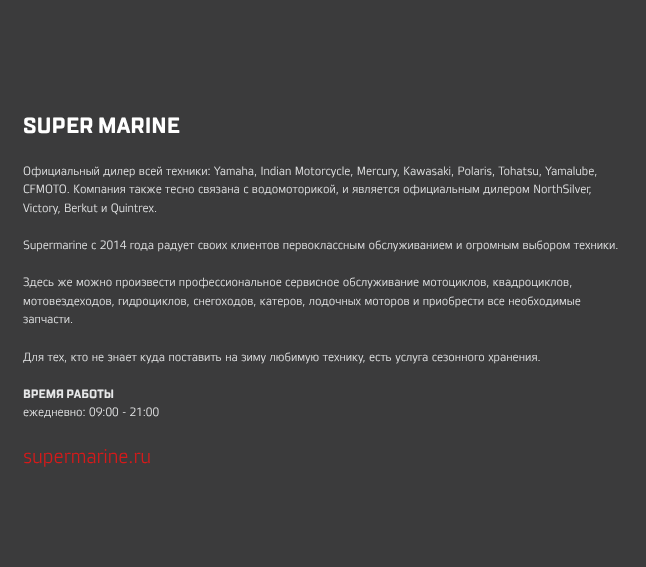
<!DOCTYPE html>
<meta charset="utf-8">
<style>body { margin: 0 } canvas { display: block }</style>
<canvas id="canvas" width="646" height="567"></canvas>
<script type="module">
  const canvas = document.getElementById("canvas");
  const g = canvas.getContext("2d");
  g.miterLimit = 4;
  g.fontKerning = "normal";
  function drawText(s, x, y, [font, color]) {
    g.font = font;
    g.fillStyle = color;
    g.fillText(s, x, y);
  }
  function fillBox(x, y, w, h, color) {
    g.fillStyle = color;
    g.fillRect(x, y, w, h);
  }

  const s1 = ["bold 22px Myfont", "#FFFFFF"];
  const s2 = ["12px 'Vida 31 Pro'", "#E6E7E8"];
  const s3 = ["bold 12px Myfont", "#E6E7E8"];
  const s4 = ["20px 'Vida 31 Pro'", "#D61A1A"];

  fillBox(0, 0, 646, 567, "#3B3B3C");
  drawText("SUPER MARINE", 23, 133, s1);
  drawText("Официальный дилер всей техники: Yamaha, Indian Motorcycle, Mercury, Kawasaki, Polaris, Tohatsu, Yamalube,", 23, 175, s2);
  drawText("CFMOTO. Компания также тесно связана с водомоторикой, и является официальным дилером NorthSilver,", 23, 193, s2);
  drawText("Victory, Berkut и Quintrex.", 23, 212, s2);
  drawText("Supermarine с 2014 года радует своих клиентов первоклассным обслуживанием и огромным выбором техники.", 23, 249, s2);
  drawText("Здесь же можно произвести профессиональное сервисное обслуживание мотоциклов, квадроциклов,", 23, 286, s2);
  drawText("мотовездеходов, гидроциклов, снегоходов, катеров, лодочных моторов и приобрести все необходимые", 23, 305, s2);
  drawText("запчасти.", 23, 323, s2);
  drawText("Для тех, кто не знает куда поставить на зиму любимую технику, есть услуга сезонного хранения.", 23, 361, s2);
  drawText("ВРЕМЯ РАБОТЫ", 23, 398, s3);
  drawText("ежедневно: 09:00 - 21:00", 23, 416, s2);
  drawText("supermarine.ru", 23, 463, s4);
</script>
